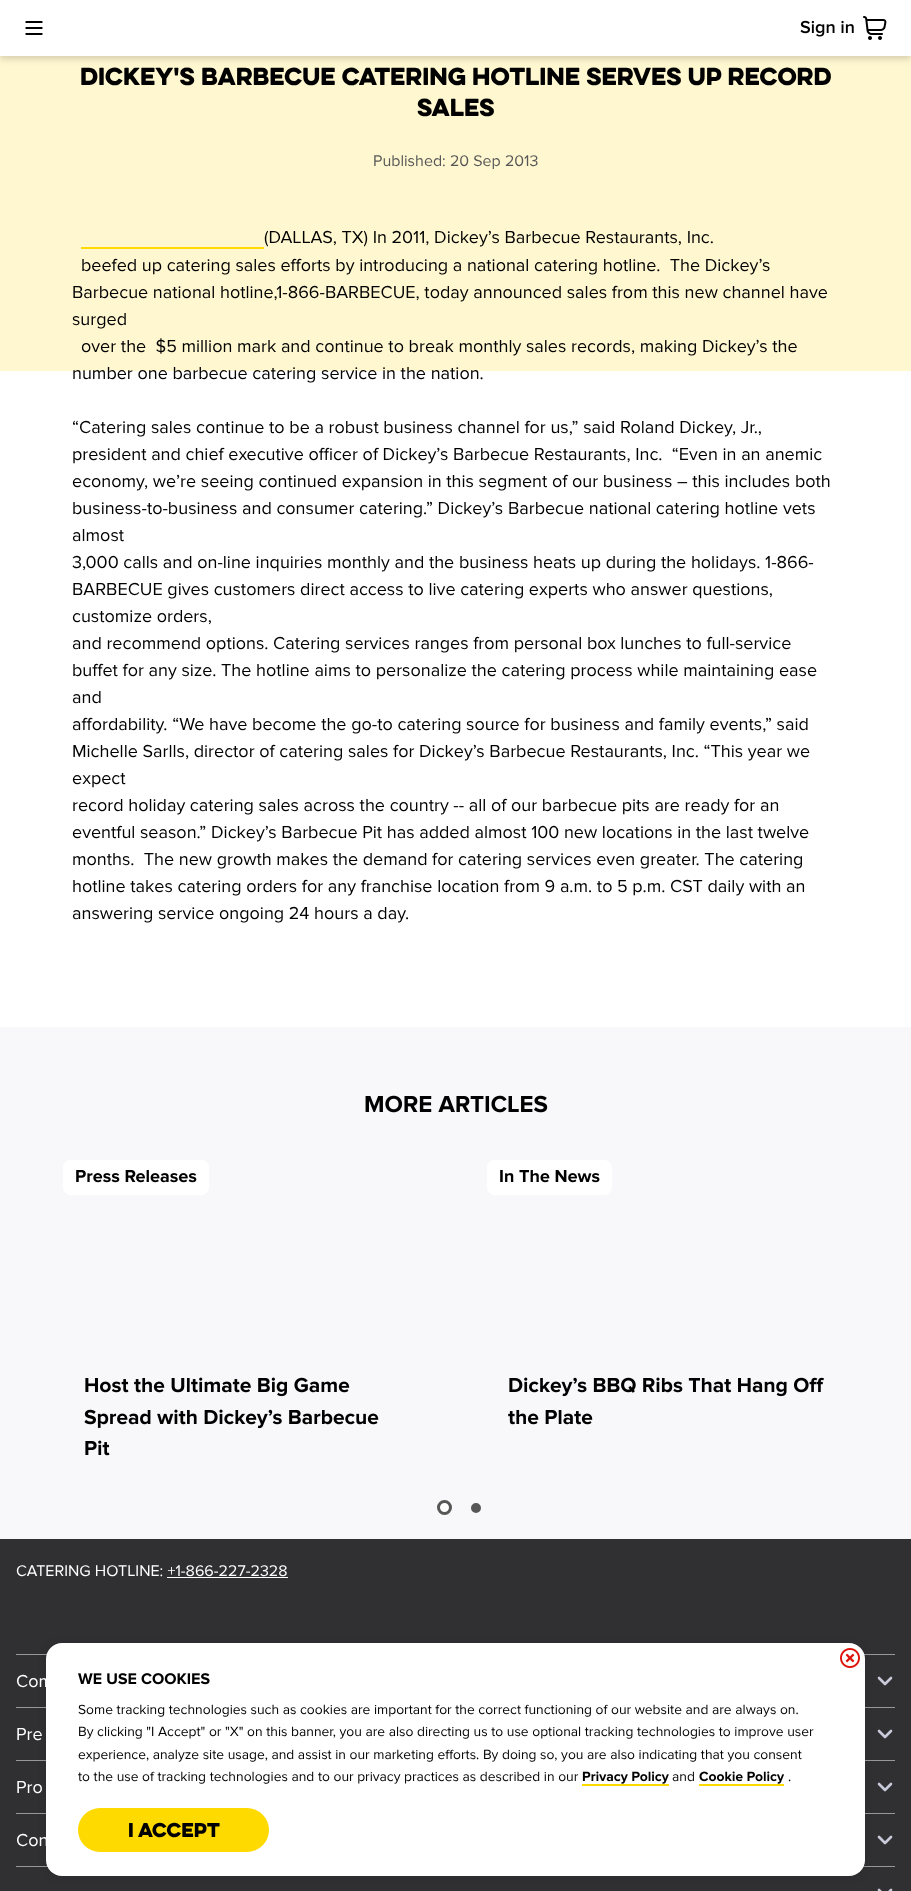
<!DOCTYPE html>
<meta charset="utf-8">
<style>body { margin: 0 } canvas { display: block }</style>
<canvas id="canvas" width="911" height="1891"></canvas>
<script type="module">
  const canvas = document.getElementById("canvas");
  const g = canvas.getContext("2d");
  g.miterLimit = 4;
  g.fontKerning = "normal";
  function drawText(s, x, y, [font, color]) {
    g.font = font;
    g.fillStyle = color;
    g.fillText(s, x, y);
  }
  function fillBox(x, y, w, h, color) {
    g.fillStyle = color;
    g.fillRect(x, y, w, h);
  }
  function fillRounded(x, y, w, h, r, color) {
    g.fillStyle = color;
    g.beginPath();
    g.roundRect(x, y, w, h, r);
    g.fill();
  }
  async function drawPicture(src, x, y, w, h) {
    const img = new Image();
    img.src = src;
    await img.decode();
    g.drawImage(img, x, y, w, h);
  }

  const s1 = ["22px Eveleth", "#010101"];
  const s2 = ["16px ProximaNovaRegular", "#575757"];
  const s3 = ["18px ProximaNovaRegular", "#010101"];
  const s4 = ["13.85px ProximaNovaRegular", "#010101"];
  const s5 = ["18px Eveleth", "#010101"];
  const s6 = ["16px ProximaNovaRegular", "#FFFFFF"];
  const s7 = ["18px ProximaNovaRegular", "#FFFFFF"];

  fillBox(0, 0, 911, 1891, "#FFFFFF");
  fillBox(0, 56, 911, 315, "#FFF7D0");
  g.fillStyle = "rgba(0, 0, 0, 0.16)";
  g.filter = "blur(3px)";
  g.beginPath();
  g.rect(0, 3, 911, 56);
  g.fill();
  g.filter = "none";
  fillBox(0, 0, 911, 56, "#FFFFFF");
  await drawPicture("pic1.png", 25, 21, 18, 14);
  await drawPicture("pic2.png", 800, 20, 54, 17);
  await drawPicture("pic3.png", 863, 16, 24, 24);
  drawText("DICKEY'S BARBECUE CATERING HOTLINE SERVES UP RECORD", 80, 85, s1);
  drawText("SALES", 417, 116, s1);
  drawText("Published: 20 Sep 2013", 373, 166, s2);
  drawText("(DALLAS, TX) In 2011, Dickey’s Barbecue Restaurants, Inc.", 264, 243, s3);
  fillBox(81, 247, 183, 2, "#FFDA00");
  drawText("beefed up catering sales efforts by introducing a national catering hotline.  The Dickey’s", 81, 271, s3);
  drawText("Barbecue national hotline,1-866-BARBECUE, today announced sales from this new channel have", 72, 298, s3);
  drawText("surged", 72, 325, s3);
  drawText("over the  $5 million mark and continue to break monthly sales records, making Dickey’s the", 81, 352, s3);
  drawText("number one barbecue catering service in the nation.", 72, 379, s3);
  drawText("“Catering sales continue to be a robust business channel for us,” said Roland Dickey, Jr.,", 72, 433, s3);
  drawText("president and chief executive officer of Dickey’s Barbecue Restaurants, Inc.  “Even in an anemic", 72, 460, s3);
  drawText("economy, we’re seeing continued expansion in this segment of our business – this includes both", 72, 487, s3);
  drawText("business-to-business and consumer catering.” Dickey’s Barbecue national catering hotline vets", 72, 514, s3);
  drawText("almost", 72, 541, s3);
  drawText("3,000 calls and on-line inquiries monthly and the business heats up during the holidays. 1-866-", 72, 568, s3);
  drawText("BARBECUE gives customers direct access to live catering experts who answer questions,", 72, 595, s3);
  drawText("customize orders,", 72, 622, s3);
  drawText("and recommend options. Catering services ranges from personal box lunches to full-service", 72, 649, s3);
  drawText("buffet for any size. The hotline aims to personalize the catering process while maintaining ease", 72, 676, s3);
  drawText("and", 72, 703, s3);
  drawText("affordability. “We have become the go-to catering source for business and family events,” said", 72, 730, s3);
  drawText("Michelle Sarlls, director of catering sales for Dickey’s Barbecue Restaurants, Inc. “This year we", 72, 757, s3);
  drawText("expect", 72, 784, s3);
  drawText("record holiday catering sales across the country -- all of our barbecue pits are ready for an", 72, 811, s3);
  drawText("eventful season.” Dickey’s Barbecue Pit has added almost 100 new locations in the last twelve", 72, 838, s3);
  drawText("months.  The new growth makes the demand for catering services even greater. The catering", 72, 865, s3);
  drawText("hotline takes catering orders for any franchise location from 9 a.m. to 5 p.m. CST daily with an", 72, 892, s3);
  drawText("answering service ongoing 24 hours a day.", 72, 919, s3);
  fillBox(0, 1027, 911, 512, "#F8F8FA");
  await drawPicture("pic4.png", 365, 1095, 183, 18);
  fillRounded(63, 1160, 146, 35, 8, "#FFFFFF");
  await drawPicture("pic5.png", 76, 1170, 121, 13);
  await drawPicture("pic6.png", 85, 1377, 265, 20);
  await drawPicture("pic7.png", 84, 1409, 295, 20);
  await drawPicture("pic8.png", 85, 1440, 25, 16);
  fillRounded(487, 1160, 125, 35, 8, "#FFFFFF");
  await drawPicture("pic9.png", 500, 1170, 100, 13);
  await drawPicture("pic10.png", 509, 1377, 316, 20);
  await drawPicture("pic11.png", 508, 1410, 85, 15);
  g.beginPath();
  g.arc(444.5, 1507.5, 6, 0, Math.PI * 2);
  g.fill();
  g.strokeStyle = "#575757";
  g.lineWidth = 3;
  g.stroke();
  g.fillStyle = "#575757";
  g.beginPath();
  g.arc(476, 1508, 4, 0, Math.PI * 2);
  g.fill();
  g.lineWidth = 2;
  g.stroke();
  fillBox(0, 1539, 911, 352, "#303033");
  fillBox(16, 1654, 879, 1, "#989899");
  fillBox(16, 1707, 879, 1, "#989899");
  g.beginPath();
  g.moveTo(879, 1678);
  g.lineTo(885, 1684);
  g.lineTo(891, 1678);
  g.strokeStyle = "#C8C9D9";
  g.lineWidth = 2.6;
  g.lineCap = "round";
  g.lineJoin = "round";
  g.stroke();
  fillBox(16, 1760, 879, 1, "#989899");
  g.beginPath();
  g.moveTo(879, 1731);
  g.lineTo(885, 1737);
  g.lineTo(891, 1731);
  g.stroke();
  fillBox(16, 1813, 879, 1, "#989899");
  g.beginPath();
  g.moveTo(879, 1784);
  g.lineTo(885, 1790);
  g.lineTo(891, 1784);
  g.stroke();
  fillBox(16, 1866, 879, 1, "#989899");
  g.beginPath();
  g.moveTo(879, 1837);
  g.lineTo(885, 1843);
  g.lineTo(891, 1837);
  g.moveTo(879, 1890);
  g.lineTo(885, 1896);
  g.lineTo(891, 1890);
  g.stroke();
  g.fillStyle = "rgba(0, 0, 0, 0.1)";
  g.filter = "blur(4px)";
  g.beginPath();
  g.roundRect(46, 1644, 819, 233, 16);
  g.fill();
  g.filter = "none";
  fillRounded(46, 1643, 819, 233, 16, "#FFFFFF");
  await drawPicture("pic12.png", 840, 1648, 20, 20);
  await drawPicture("pic13.png", 78, 1673, 132, 12);
  drawText("Some tracking technologies such as cookies are important for the correct functioning of our website and are always on.", 78, 1714, s4);
  drawText("By clicking \"I Accept\" or \"X\" on this banner, you are also directing us to use optional tracking technologies to improve user", 78, 1736, s4);
  drawText("experience, analyze site usage, and assist in our marketing efforts. By doing so, you are also indicating that you consent", 78, 1759, s4);
  drawText("to the use of tracking technologies and to our privacy practices as described in our", 78, 1781, s4);
  await drawPicture("pic14.png", 582, 1771, 87, 13);
  drawText("and", 672, 1781, s4);
  await drawPicture("pic15.png", 699, 1771, 85, 13);
  drawText(".", 788, 1781, s4);
  fillBox(582, 1784, 87, 2, "#FFDA00");
  fillBox(699, 1784, 85, 2, "#FFDA00");
  fillRounded(78, 1808, 191, 44, 22, "#FFDA00");
  drawText("I Accept", 128, 1837, s5);
  drawText("CATERING HOTLINE: +1-866-227-2328", 16, 1576, s6);
  fillBox(167, 1577, 121, 1, "#FFFFFF");
  drawText("Com", 16, 1687, s7);
  drawText("Pre", 16, 1740, s7);
  drawText("Pro", 16, 1793, s7);
  drawText("Con", 16, 1846, s7);
</script>
